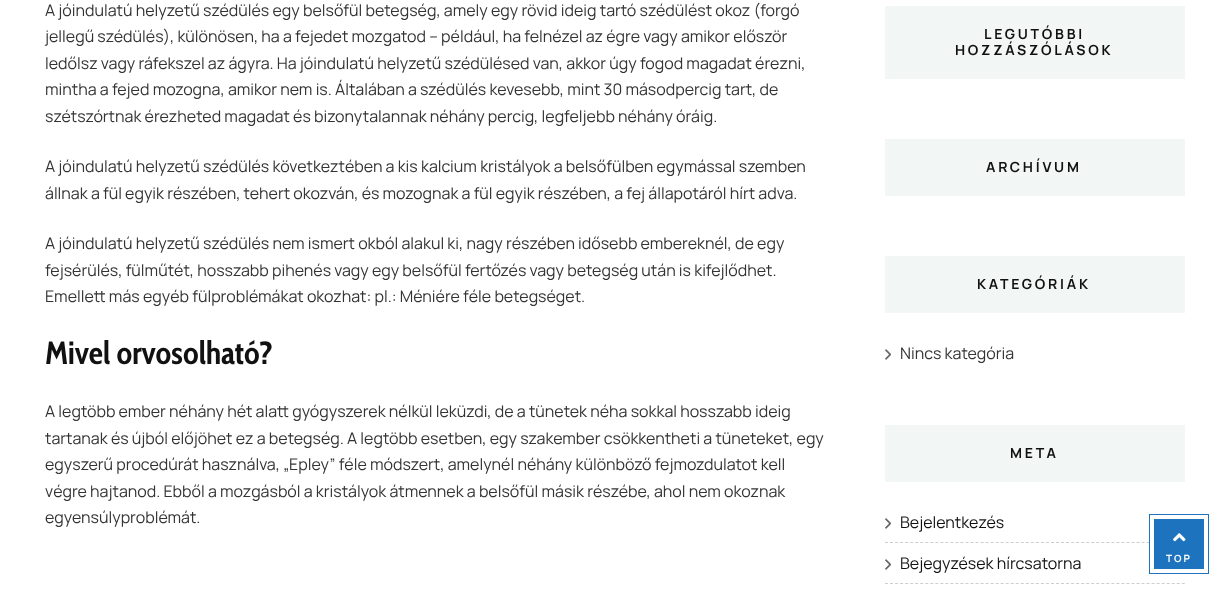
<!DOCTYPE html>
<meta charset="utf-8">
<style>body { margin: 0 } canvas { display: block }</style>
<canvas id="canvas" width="1229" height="594"></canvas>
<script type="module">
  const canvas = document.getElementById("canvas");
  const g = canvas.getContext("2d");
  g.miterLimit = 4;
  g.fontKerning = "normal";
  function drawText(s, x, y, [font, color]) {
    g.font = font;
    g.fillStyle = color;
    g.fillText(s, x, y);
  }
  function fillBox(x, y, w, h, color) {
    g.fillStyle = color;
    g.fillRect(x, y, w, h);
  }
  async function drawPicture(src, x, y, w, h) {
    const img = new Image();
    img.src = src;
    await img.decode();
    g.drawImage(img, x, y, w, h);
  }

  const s1 = ["16px Manrope", "#333333"];
  const s2 = ["bold 32px Cabin Condensed", "#111111"];
  const s3 = ["bold 14px Manrope", "#111111"];
  const s4 = ["16px Manrope", "#111111"];
  const s5 = ["bold 10px Manrope", "#FFFFFF"];

  fillBox(0, 0, 1229, 594, "#FFFFFF");
  drawText("A jóindulatú helyzetű szédülés egy belsőfül betegség, amely egy rövid ideig tartó szédülést okoz (forgó", 45, 16, s1);
  drawText("jellegű szédülés), különösen, ha a fejedet mozgatod – például, ha felnézel az égre vagy amikor először", 45, 42, s1);
  drawText("ledőlsz vagy ráfekszel az ágyra. Ha jóindulatú helyzetű szédülésed van, akkor úgy fogod magadat érezni,", 45, 69, s1);
  drawText("mintha a fejed mozogna, amikor nem is. Általában a szédülés kevesebb, mint 30 másodpercig tart, de", 45, 95, s1);
  drawText("szétszórtnak érezheted magadat és bizonytalannak néhány percig, legfeljebb néhány óráig.", 45, 122, s1);
  drawText("A jóindulatú helyzetű szédülés következtében a kis kalcium kristályok a belsőfülben egymással szemben", 45, 172, s1);
  drawText("állnak a fül egyik részében, tehert okozván, és mozognak a fül egyik részében, a fej állapotáról hírt adva.", 45, 199, s1);
  drawText("A jóindulatú helyzetű szédülés nem ismert okból alakul ki, nagy részében idősebb embereknél, de egy", 45, 249, s1);
  drawText("fejsérülés, fülműtét, hosszabb pihenés vagy egy belsőfül fertőzés vagy betegség után is kifejlődhet.", 45, 276, s1);
  drawText("Emellett más egyéb fülproblémákat okozhat: pl.: Méniére féle betegséget.", 45, 302, s1);
  drawText("Mivel orvosolható?", 45, 364, s2);
  drawText("A legtöbb ember néhány hét alatt gyógyszerek nélkül leküzdi, de a tünetek néha sokkal hosszabb ideig", 45, 417, s1);
  drawText("tartanak és újból előjöhet ez a betegség. A legtöbb esetben, egy szakember csökkentheti a tüneteket, egy", 45, 444, s1);
  drawText("egyszerű procedúrát használva, „Epley” féle módszert, amelynél néhány különböző fejmozdulatot kell", 45, 470, s1);
  drawText("végre hajtanod. Ebből a mozgásból a kristályok átmennek a belsőfül másik részébe, ahol nem okoznak", 45, 497, s1);
  drawText("egyensúlyproblémát.", 45, 523, s1);
  fillBox(885, 6, 300, 73, "#F2F7F6");
  g.letterSpacing = "2.75px";
  drawText("LEGUTÓBBI", 984, 39, s3);
  drawText("HOZZÁSZÓLÁSOK", 955, 55, s3);
  fillBox(885, 139, 300, 57, "#F2F7F6");
  drawText("ARCHÍVUM", 986, 172, s3);
  fillBox(885, 256, 300, 57, "#F2F7F6");
  drawText("KATEGÓRIÁK", 977, 289, s3);
  await drawPicture("pic1.png", 885, 349, 6, 11);
  g.letterSpacing = "0px";
  drawText("Nincs kategória", 900, 359, s1);
  fillBox(885, 425, 300, 57, "#F2F7F6");
  g.letterSpacing = "2.75px";
  drawText("META", 1010, 458, s3);
  g.beginPath();
  g.moveTo(885, 542.5);
  g.lineTo(1185, 542.5);
  g.strokeStyle = "#CECECE";
  g.setLineDash([3, 2.03]);
  g.stroke();
  await drawPicture("pic1.png", 885, 518, 6, 11);
  g.letterSpacing = "0px";
  drawText("Bejelentkezés", 900, 528, s4);
  g.beginPath();
  g.moveTo(885, 583.5);
  g.lineTo(1185, 583.5);
  g.stroke();
  await drawPicture("pic1.png", 885, 559, 6, 11);
  drawText("Bejegyzések hírcsatorna", 900, 569, s4);
  fillBox(1149, 514, 60, 60, "#1E73BE");
  await drawPicture("pic2.png", 1173, 533, 13, 9);
  g.strokeStyle = "#FFFFFF";
  g.lineWidth = 4;
  g.setLineDash([]);
  g.strokeRect(1152, 517, 54, 54);
  g.letterSpacing = "2px";
  drawText("TOP", 1166, 562, s5);
</script>
